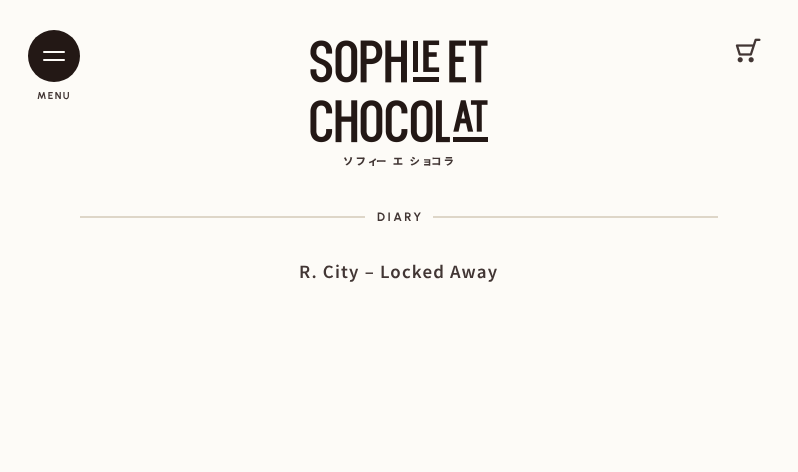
<!DOCTYPE html>
<meta charset="utf-8">
<style>body { margin: 0 } canvas { display: block }</style>
<canvas id="canvas" width="798" height="472"></canvas>
<script type="module">
  const canvas = document.getElementById("canvas");
  const g = canvas.getContext("2d");
  g.miterLimit = 4;
  g.fontKerning = "normal";
  function drawText(s, x, y, [font, color]) {
    g.font = font;
    g.fillStyle = color;
    g.fillText(s, x, y);
  }
  function fillBox(x, y, w, h, color) {
    g.fillStyle = color;
    g.fillRect(x, y, w, h);
  }
  function fillRounded(x, y, w, h, r, color) {
    g.fillStyle = color;
    g.beginPath();
    g.roundRect(x, y, w, h, r);
    g.fill();
  }
  async function drawPicture(src, x, y, w, h) {
    const img = new Image();
    img.src = src;
    await img.decode();
    g.drawImage(img, x, y, w, h);
  }

  const s1 = ["bold 10px Urbanist", "#423634"];
  const s2 = ["800 10.4px Noto Sans JP", "#423634"];
  const s3 = ["bold 12px Urbanist", "#423634"];
  const s4 = ["600 16.75px Noto Sans JP", "#423634"];

  fillBox(0, 0, 798, 472, "#FDFBF7");
  await drawPicture("pic1.png", 735, 38, 26, 25);
  g.fillStyle = "#231815";
  g.beginPath();
  g.arc(54, 56, 26, 0, Math.PI * 2);
  g.fill();
  fillRounded(43, 51, 22, 2, 1, "#FDFBF7");
  fillRounded(43, 59, 22, 2, 1, "#FDFBF7");
  g.letterSpacing = "1.5px";
  drawText("MENU", 37, 99, s1);
  await drawPicture("pic2.png", 310, 40, 178, 103);
  g.letterSpacing = "2px";
  drawText("ソフィ", 343, 165, s2);
  drawText("ー エ ショ", 376, 165, s2);
  drawText("コラ", 431, 165, s2);
  fillBox(80, 216, 285, 2, "#DED6C8");
  g.letterSpacing = "2.5px";
  drawText("DIARY", 377, 221, s3);
  fillBox(433, 216, 285, 2, "#DED6C8");
  g.letterSpacing = "1.2px";
  drawText("R. City – Locked Away", 299, 278, s4);
</script>
